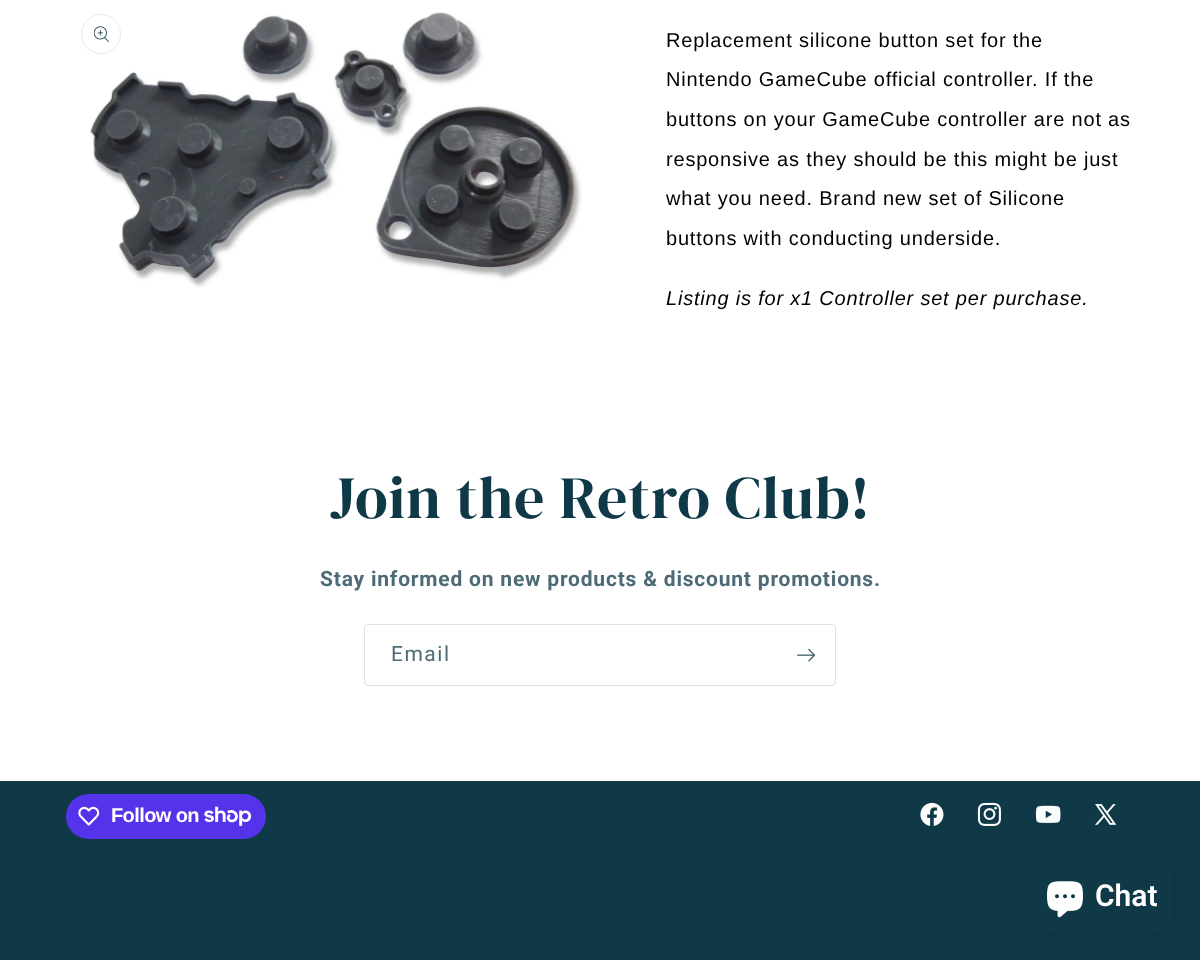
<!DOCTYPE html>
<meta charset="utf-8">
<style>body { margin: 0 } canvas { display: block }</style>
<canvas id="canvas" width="1200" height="960"></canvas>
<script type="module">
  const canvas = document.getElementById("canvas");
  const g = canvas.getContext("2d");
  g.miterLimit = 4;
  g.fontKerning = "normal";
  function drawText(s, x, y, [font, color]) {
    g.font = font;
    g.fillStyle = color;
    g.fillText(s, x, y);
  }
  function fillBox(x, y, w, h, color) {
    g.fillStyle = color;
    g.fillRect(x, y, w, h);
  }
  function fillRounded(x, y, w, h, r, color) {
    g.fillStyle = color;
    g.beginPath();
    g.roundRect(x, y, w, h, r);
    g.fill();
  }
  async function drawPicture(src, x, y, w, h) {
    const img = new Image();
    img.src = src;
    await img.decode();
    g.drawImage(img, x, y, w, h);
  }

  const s1 = ["20px Liberation Sans", "#000000"];
  const s2 = ["italic 20px Liberation Sans", "#000000"];
  const s3 = ["60px DM Serif Display", "#103948"];
  const s4 = ["bold 21px Roboto", "#4C6B76"];
  const s5 = ["21px Roboto", "#4C6B76"];
  const s6 = ["bold 20px Liberation Sans", "#FFFFFF"];
  const s7 = ["600 30px Roboto", "#FFFFFF"];

  fillBox(0, 0, 1200, 960, "#FFFFFF");
  await drawPicture("pic1.png", 90, 12, 492, 276);
  g.beginPath();
  g.arc(101, 34, 19.5, 0, Math.PI * 2);
  g.strokeStyle = "#E7EBED";
  g.stroke();
  await drawPicture("pic2.png", 94, 26, 15, 16);
  g.letterSpacing = "0.8px";
  drawText("Replacement silicone button set for the", 666, 47, s1);
  drawText("Nintendo GameCube official controller. If the", 666, 86, s1);
  drawText("buttons on your GameCube controller are not as", 666, 126, s1);
  drawText("responsive as they should be this might be just", 666, 166, s1);
  drawText("what you need. Brand new set of Silicone", 666, 205, s1);
  drawText("buttons with conducting underside.", 666, 245, s1);
  drawText("Listing is for x1 Controller set per purchase.", 666, 305, s2);
  g.letterSpacing = "0.9px";
  drawText("Join the Retro Club!", 330, 518, s3);
  g.letterSpacing = "0.8px";
  drawText("Stay informed on new products & discount promotions.", 320, 586, s4);
  g.beginPath();
  g.roundRect(364.5, 624.5, 471, 61, 3.5);
  g.strokeStyle = "#DBE1E4";
  g.stroke();
  g.letterSpacing = "1.5px";
  drawText("Email", 391, 661, s5);
  await drawPicture("pic3.png", 797, 648, 19, 14);
  fillBox(0, 781, 1200, 179, "#103948");
  fillRounded(66, 794, 200, 45, 22.5, "#5433EB");
  await drawPicture("pic4.png", 78, 806, 22, 20);
  g.letterSpacing = "-0.6px";
  drawText("Follow on", 111, 822, s6);
  await drawPicture("pic5.png", 204, 806, 47, 20);
  await drawPicture("pic6.png", 920, 802, 24, 24);
  await drawPicture("pic7.png", 977, 802, 24, 24);
  await drawPicture("pic8.png", 1035, 805, 26, 18);
  await drawPicture("pic9.png", 1095, 804, 22, 21);
  g.fillStyle = "rgba(0, 0, 0, 0.15)";
  g.filter = "blur(3px)";
  g.beginPath();
  g.roundRect(1031, 859, 142, 75, 20);
  g.fill();
  g.filter = "none";
  fillRounded(1031, 859, 142, 75, 20, "#103948");
  await drawPicture("pic10.png", 1047, 881, 36, 37);
  g.letterSpacing = "0px";
  drawText("Chat", 1095, 906, s7);
</script>
